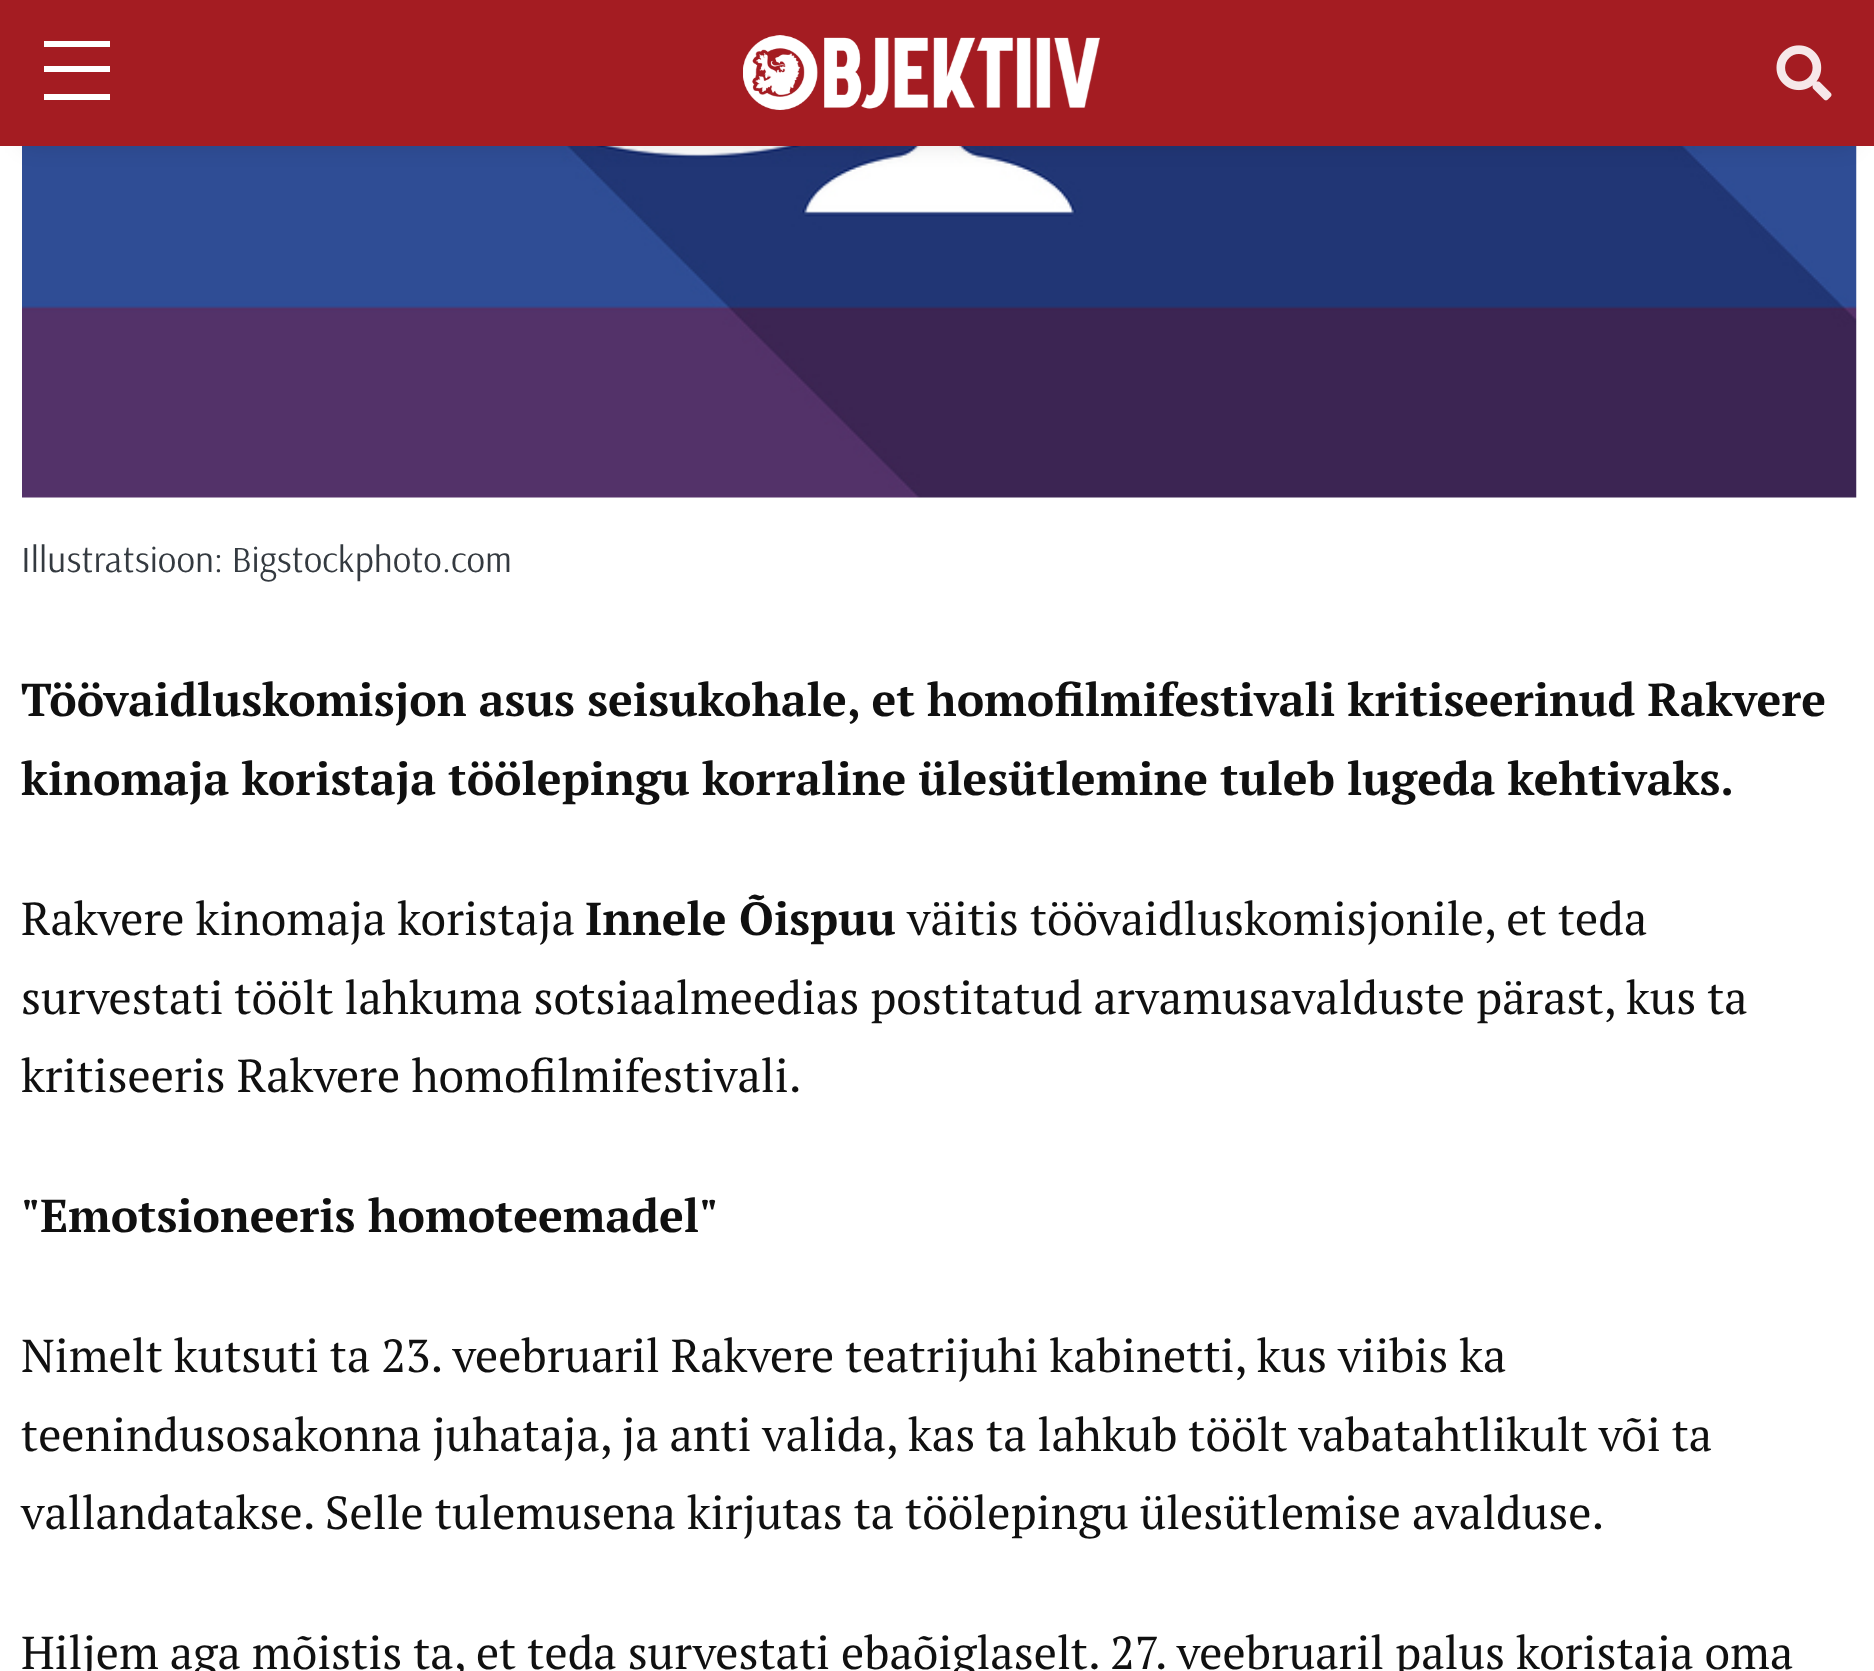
<!DOCTYPE html>
<meta charset="utf-8">
<style>body { margin: 0 } canvas { display: block }</style>
<canvas id="canvas" width="1874" height="1671"></canvas>
<script type="module">
  const canvas = document.getElementById("canvas");
  const g = canvas.getContext("2d");
  g.miterLimit = 4;
  g.fontKerning = "normal";
  function drawText(s, x, y, [font, color]) {
    g.font = font;
    g.fillStyle = color;
    g.fillText(s, x, y);
  }
  function fillBox(x, y, w, h, color) {
    g.fillStyle = color;
    g.fillRect(x, y, w, h);
  }
  async function drawPicture(src, x, y, w, h) {
    const img = new Image();
    img.src = src;
    await img.decode();
    g.drawImage(img, x, y, w, h);
  }

  const s1 = ["37px Arsenal", "#343A40"];
  const s2 = ["bold 46.2px PT Serif", "#101010"];
  const s3 = ["46.2px PT Serif", "#101010"];

  fillBox(0, 0, 1874, 1671, "#FFFFFF");
  await drawPicture("pic3.png", 22, 146, 1835, 352);
  g.fillStyle = "rgba(0, 0, 0, 0.1)";
  g.filter = "blur(11px)";
  g.beginPath();
  g.rect(22, 44, 1832, 102);
  g.fill();
  g.filter = "none";
  fillBox(0, 0, 1874, 146, "#A41C22");
  fillBox(44, 41, 66, 6, "#FFFFFF");
  fillBox(44, 66, 66, 6, "#FFFFFF");
  fillBox(44, 94, 66, 6, "#FFFFFF");
  await drawPicture("pic1.png", 743, 35, 357, 75);
  await drawPicture("pic2.png", 1776, 45, 56, 56);
  drawText("Illustratsioon: Bigstockphoto.com", 21, 572, s1);
  g.wordSpacing = "-0.25px";
  drawText("Töövaidluskomisjon asus seisukohale, et homofilmifestivali kritiseerinud Rakvere", 21, 716, s2);
  drawText("kinomaja koristaja töölepingu korraline ülesütlemine tuleb lugeda kehtivaks.", 21, 795, s2);
  g.wordSpacing = "0px";
  drawText("Rakvere kinomaja koristaja", 21, 935, s3);
  drawText("Innele Õispuu", 585, 935, s2);
  drawText("väitis töövaidluskomisjonile, et teda", 907, 935, s3);
  g.wordSpacing = "-0.25px";
  drawText("survestati töölt lahkuma sotsiaalmeedias postitatud arvamusavalduste pärast, kus ta", 21, 1014, s3);
  g.wordSpacing = "0px";
  drawText("kritiseeris Rakvere homofilmifestivali.", 21, 1092, s3);
  drawText("\"Emotsioneeris homoteemadel\"", 21, 1232, s2);
  g.wordSpacing = "-0.25px";
  drawText("Nimelt kutsuti ta 23. veebruaril Rakvere teatrijuhi kabinetti, kus viibis ka", 21, 1372, s3);
  drawText("teenindusosakonna juhataja, ja anti valida, kas ta lahkub töölt vabatahtlikult või ta", 21, 1451, s3);
  drawText("vallandatakse. Selle tulemusena kirjutas ta töölepingu ülesütlemise avalduse.", 21, 1529, s3);
  g.wordSpacing = "-0.2px";
  drawText("Hiljem aga mõistis ta, et teda survestati ebaõiglaselt. 27. veebruaril palus koristaja oma", 21, 1669, s3);
</script>
